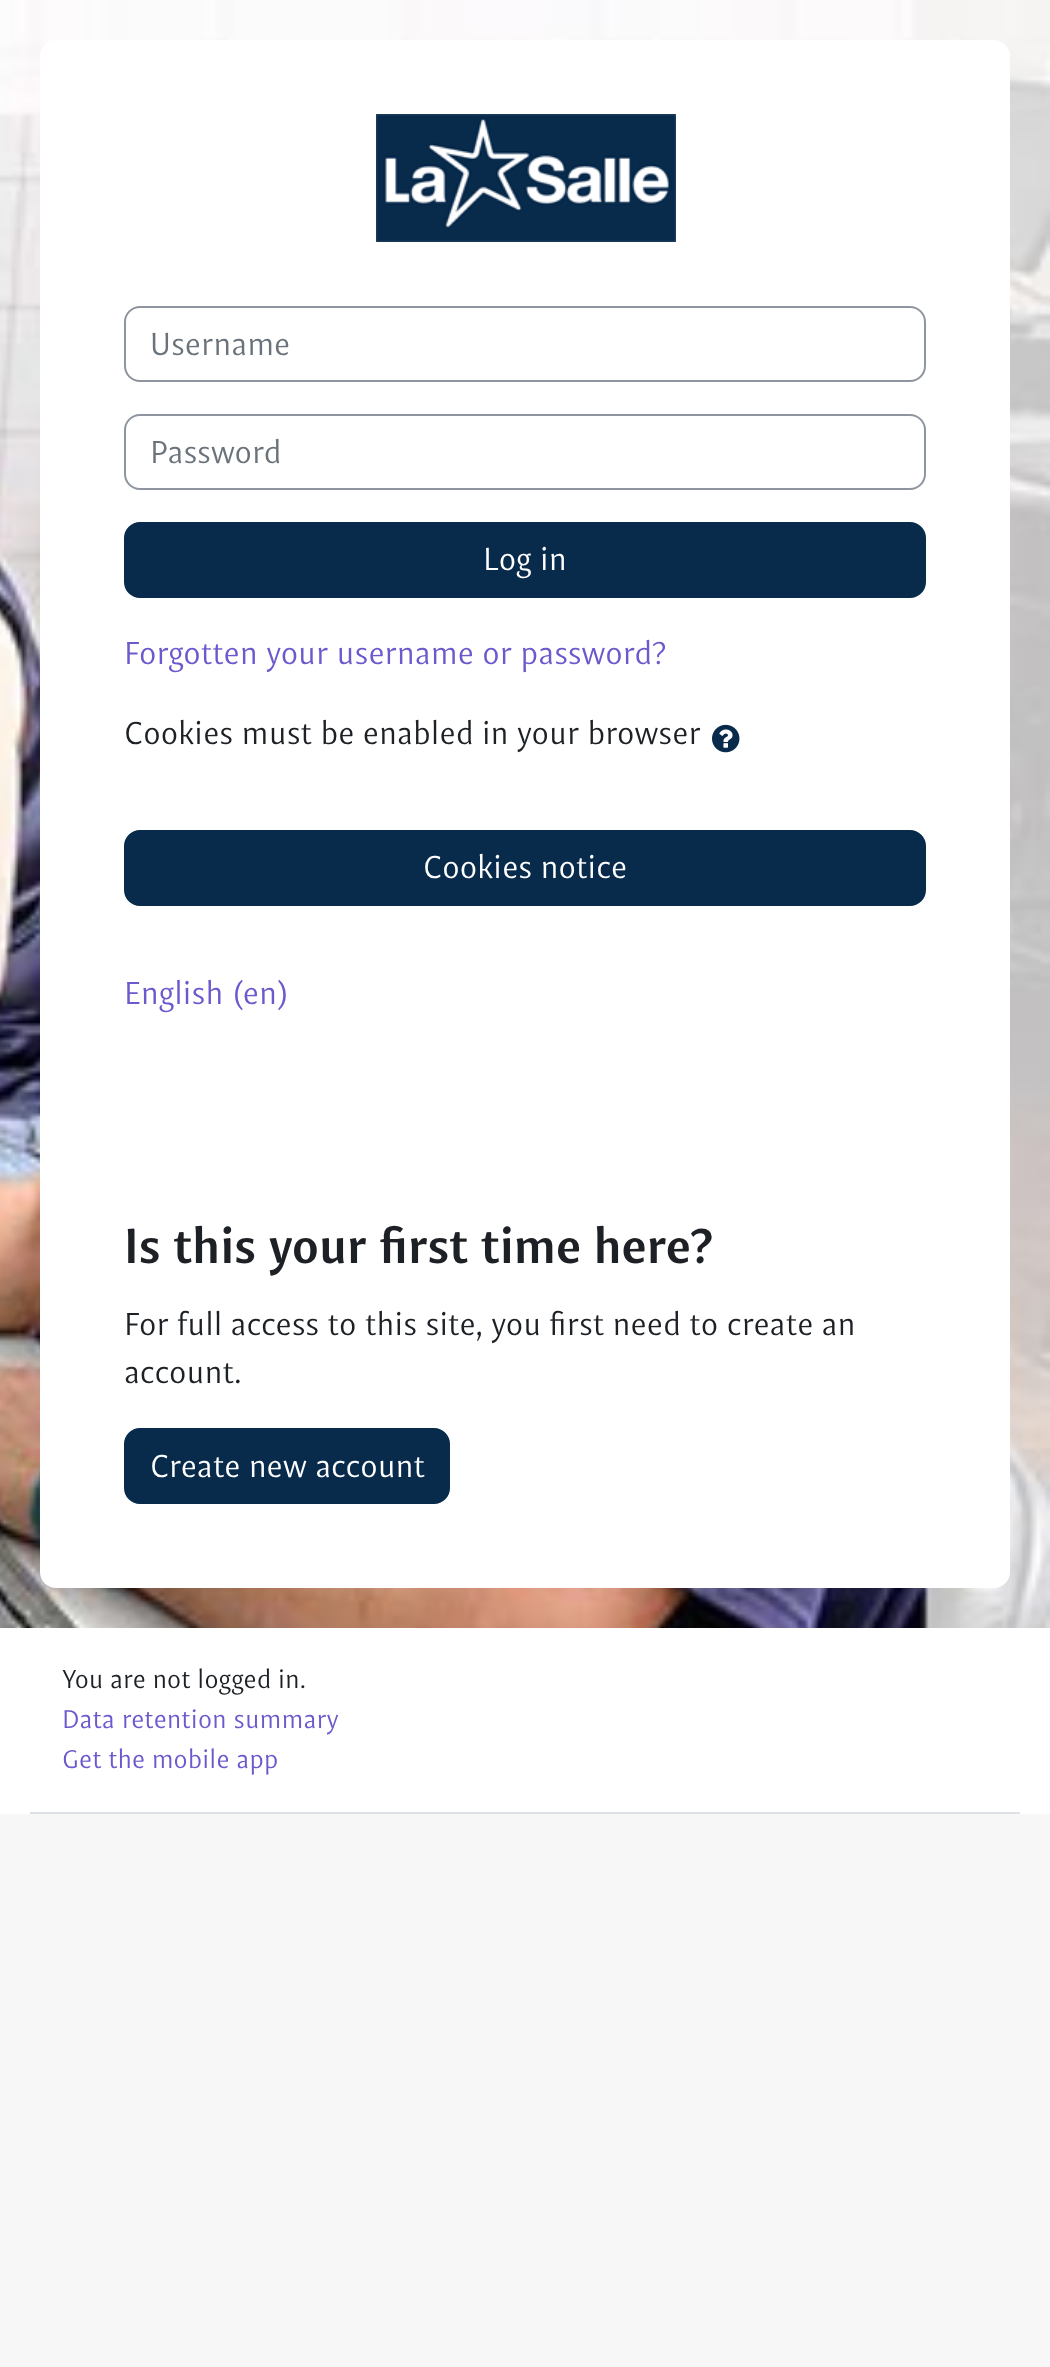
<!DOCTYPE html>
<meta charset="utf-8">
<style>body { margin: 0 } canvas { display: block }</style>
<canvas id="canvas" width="1050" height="2367"></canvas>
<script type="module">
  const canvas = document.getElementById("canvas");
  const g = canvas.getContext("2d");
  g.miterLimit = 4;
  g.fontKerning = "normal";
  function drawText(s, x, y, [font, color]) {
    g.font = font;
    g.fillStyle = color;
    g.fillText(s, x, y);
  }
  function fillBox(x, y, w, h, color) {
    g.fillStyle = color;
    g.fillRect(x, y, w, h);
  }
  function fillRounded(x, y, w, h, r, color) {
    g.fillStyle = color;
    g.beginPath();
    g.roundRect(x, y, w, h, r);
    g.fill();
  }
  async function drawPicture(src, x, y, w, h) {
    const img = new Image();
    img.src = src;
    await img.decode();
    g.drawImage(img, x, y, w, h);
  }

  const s1 = ["32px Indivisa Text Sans", "#6A737B"];
  const s2 = ["32px Indivisa Text Sans", "#FFFFFF"];
  const s3 = ["32px Indivisa Text Sans", "#6A5ACD"];
  const s4 = ["32px Indivisa Text Sans", "#1D2125"];
  const s5 = ["bold 49.3px Indivisa Text Sans", "#1D2125"];
  const s6 = ["26px Indivisa Text Sans", "#1D2125"];
  const s7 = ["26px Indivisa Text Sans", "#6A5ACD"];

  fillBox(0, 0, 1050, 2367, "#F7F7F7");
  await drawPicture("pic1.png", 0, 0, 1050, 1628);
  fillRounded(40, 40, 970, 1548, 16, "#FFFFFF");
  await drawPicture("pic2.png", 376, 114, 300, 128);
  g.beginPath();
  g.roundRect(125, 307, 800, 74, 15);
  g.strokeStyle = "#8F959E";
  g.lineWidth = 2;
  g.stroke();
  drawText("Username", 150, 355, s1);
  g.beginPath();
  g.roundRect(125, 415, 800, 74, 15);
  g.stroke();
  drawText("Password", 150, 463, s1);
  g.fillStyle = "#082B4C";
  g.beginPath();
  g.roundRect(125, 523, 800, 74, 15);
  g.fill();
  g.strokeStyle = "#082B4C";
  g.stroke();
  drawText("Log in", 483, 570, s2);
  drawText("Forgotten your username or password?", 124, 664, s3);
  drawText("Cookies must be enabled in your browser", 124, 744, s4);
  await drawPicture("pic3.png", 712, 724, 28, 29);
  g.fillStyle = "#082B4C";
  g.beginPath();
  g.roundRect(125, 831, 800, 74, 15);
  g.fill();
  g.stroke();
  drawText("Cookies notice", 423, 878, s2);
  drawText("English (en)", 124, 1004, s3);
  drawText("Is this your first time here?", 124, 1263, s5);
  drawText("For full access to this site, you first need to create an", 124, 1335, s4);
  drawText("account.", 124, 1383, s4);
  g.fillStyle = "#082B4C";
  g.beginPath();
  g.roundRect(125, 1429, 324, 74, 15);
  g.fill();
  g.stroke();
  drawText("Create new account", 150, 1477, s2);
  fillBox(0, 1628, 1050, 186, "#FFFFFF");
  fillBox(30, 1812, 990, 2, "#DEE2E6");
  drawText("You are not logged in.", 62, 1688, s6);
  drawText("Data retention summary", 62, 1728, s7);
  drawText("Get the mobile app", 62, 1768, s7);
</script>
